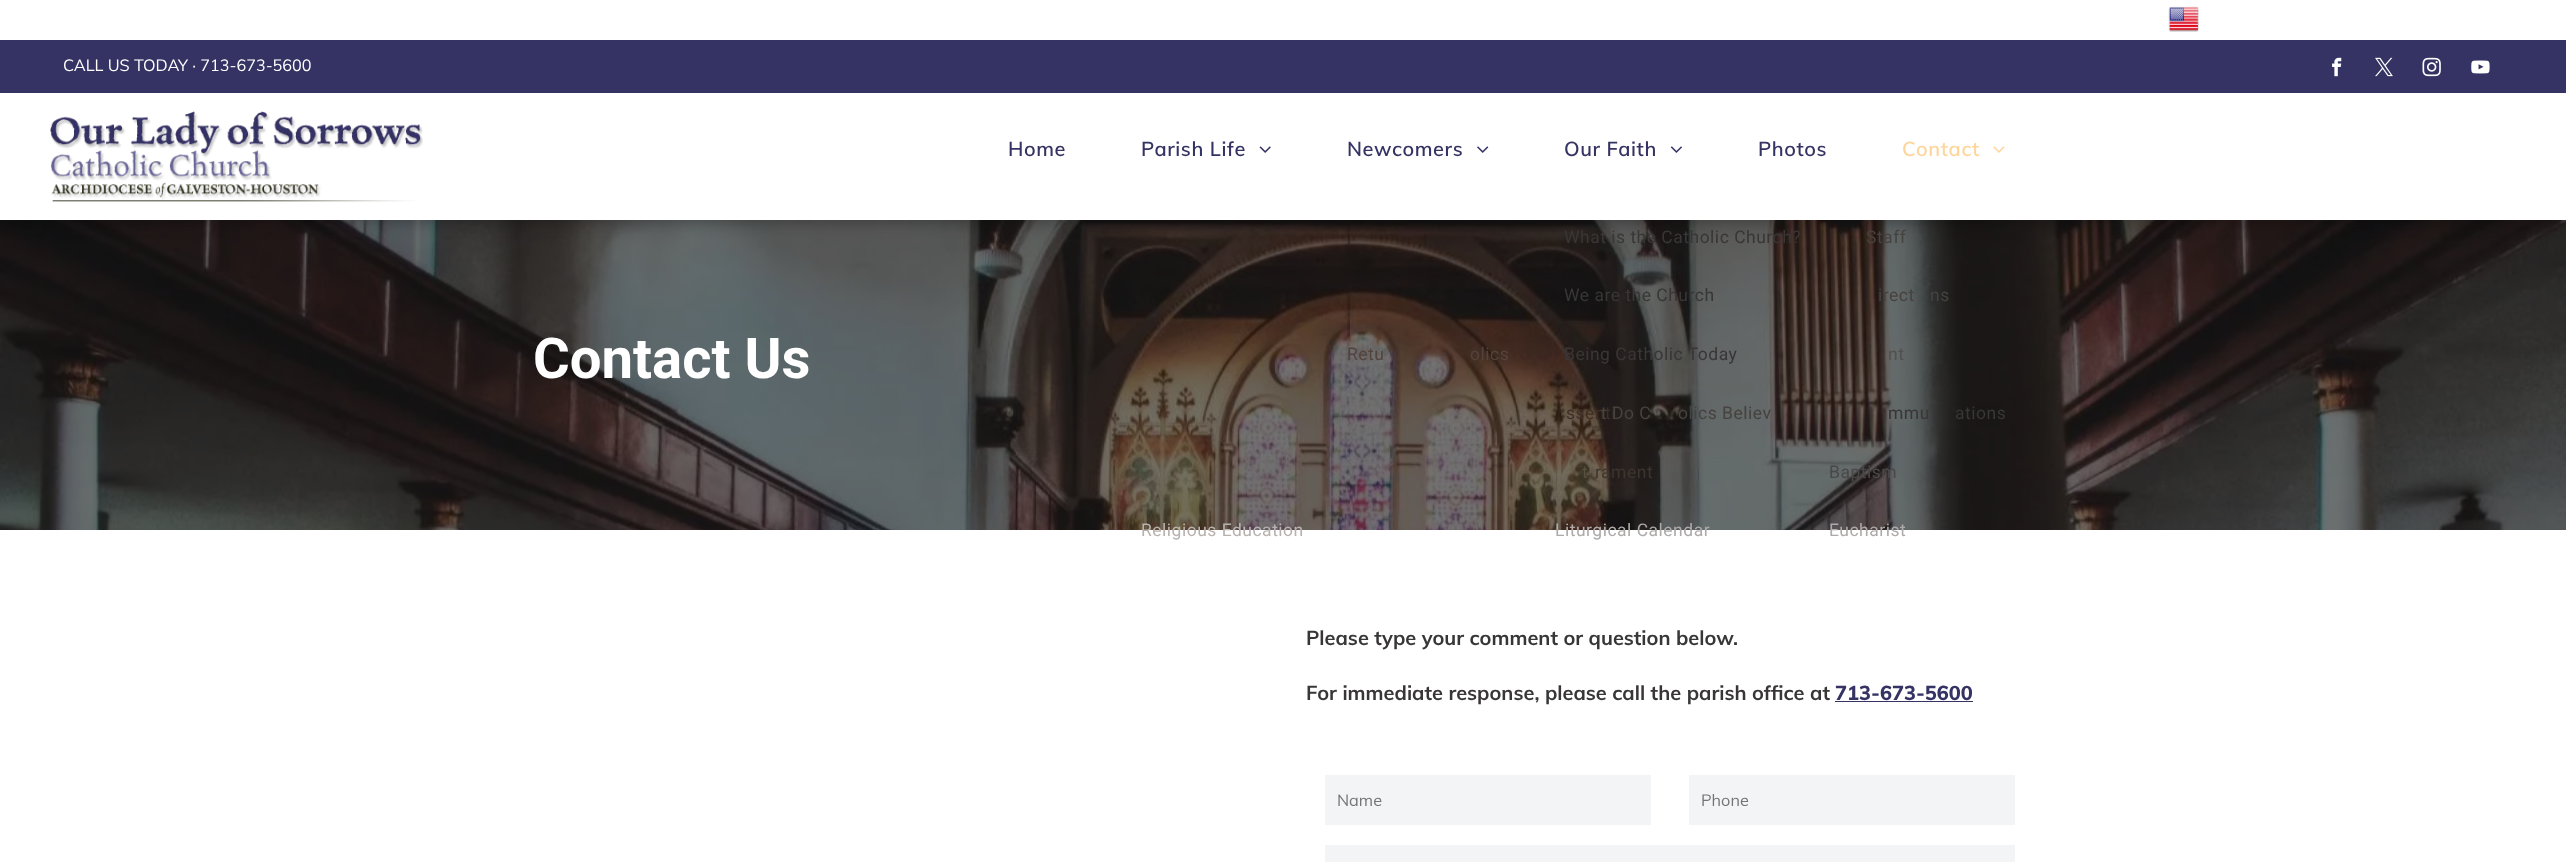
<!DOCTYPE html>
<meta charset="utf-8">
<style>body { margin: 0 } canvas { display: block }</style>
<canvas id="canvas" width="2566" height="862"></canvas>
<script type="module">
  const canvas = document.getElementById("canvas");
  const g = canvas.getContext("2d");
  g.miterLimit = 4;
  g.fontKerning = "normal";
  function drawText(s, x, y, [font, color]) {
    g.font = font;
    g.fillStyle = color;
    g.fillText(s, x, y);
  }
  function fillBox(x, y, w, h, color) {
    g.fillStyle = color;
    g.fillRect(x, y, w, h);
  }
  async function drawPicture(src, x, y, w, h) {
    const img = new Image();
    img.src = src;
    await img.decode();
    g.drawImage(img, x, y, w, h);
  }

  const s1 = ["16.25px Muli", "#FFFFFF"];
  const s2 = ["600 20px Muli", "#353363"];
  const s3 = ["17.5px Roboto", "#B8B2AF"];
  const s4 = ["17.5px Roboto", "#53433D"];
  const s5 = ["17.5px Roboto", "#3B2F27"];
  const s6 = ["17.5px Roboto", "#584F3F"];
  const s7 = ["17.5px Roboto", "#ADAAA9"];
  const s8 = ["17.5px Roboto", "#383636"];
  const s9 = ["17.5px Roboto", "#46423E"];
  const s10 = ["17.5px Roboto", "#3D352D"];
  const s11 = ["17.5px Roboto", "#484848"];
  const s12 = ["600 20px Muli", "#FED59A"];
  const s13 = ["17.5px Roboto", "#52514F"];
  const s14 = ["bold 56.25px Roboto", "#FFFFFF"];
  const s15 = ["bold 20px Muli", "#383636"];
  const s16 = ["800 20px Muli", "#353363"];
  const s17 = ["16.25px Muli", "#757575"];

  fillBox(0, 0, 2566, 862, "#FFFFFF");
  await drawPicture("pic11.png", 0, 220, 2566, 310);
  g.fillStyle = "rgba(0, 0, 0, 0.25)";
  g.filter = "blur(7px)";
  g.beginPath();
  g.rect(0, 4, 2566, 220);
  g.fill();
  g.filter = "none";
  fillBox(0, 0, 2566, 220, "#FFFFFF");
  await drawPicture("pic1.png", 2168, 6, 31, 26);
  fillBox(0, 40, 2566, 53, "#353363");
  drawText("CALL US TODAY · 713-673-5600", 63, 71, s1);
  await drawPicture("pic2.png", 2332, 57, 10, 20);
  await drawPicture("pic3.png", 2375, 57, 18, 20);
  await drawPicture("pic4.png", 2422, 57, 19, 20);
  await drawPicture("pic5.png", 2471, 60, 19, 14);
  await drawPicture("pic6.png", 50, 111, 373, 91);
  g.letterSpacing = "0.6px";
  drawText("Home", 1008, 156, s2);
  drawText("Parish Life", 1141, 156, s2);
  await drawPicture("pic7.png", 1259, 146, 12, 7);
  g.letterSpacing = "0.5px";
  drawText("Religious Education", 1141, 536, s3);
  g.letterSpacing = "0.6px";
  drawText("Newcomers", 1347, 156, s2);
  await drawPicture("pic8.png", 1477, 146, 12, 7);
  g.letterSpacing = "0.5px";
  drawText("Retu", 1347, 360, s4);
  drawText("olics", 1470, 360, s4);
  drawText("ssenti", 1566, 419, s5);
  drawText("t", 1582, 478, s6);
  drawText("Liturgical Calendar", 1555, 536, s7);
  g.letterSpacing = "0.6px";
  drawText("Our Faith", 1564, 156, s2);
  await drawPicture("pic9.png", 1670, 146, 12, 7);
  g.letterSpacing = "0.5px";
  drawText("What is the Catholic Church?", 1564, 243, s8);
  drawText("We are the Church", 1564, 301, s8);
  drawText("Being Catholic Today", 1564, 360, s8);
  drawText("t Do C", 1601, 419, s9);
  drawText("olics Believ", 1678, 419, s9);
  drawText("rament", 1595, 478, s10);
  drawText("Baptism", 1829, 478, s11);
  drawText("Eucharist", 1829, 536, s7);
  g.letterSpacing = "0.6px";
  drawText("Photos", 1758, 156, s2);
  drawText("Contact", 1902, 156, s12);
  await drawPicture("pic10.png", 1993, 146, 12, 7);
  g.letterSpacing = "0.5px";
  drawText("Staff", 1866, 243, s9);
  drawText("irect", 1878, 301, s9);
  drawText("ns", 1930, 301, s9);
  drawText("nt", 1888, 360, s13);
  drawText("mmu", 1888, 419, s8);
  drawText("ations", 1955, 419, s8);
  g.letterSpacing = "0px";
  drawText("Contact Us", 533, 378, s14);
  drawText("Please type your comment or question below.", 1306, 645, s15);
  drawText("For immediate response, please call the parish office at", 1306, 700, s15);
  drawText("713-673-5600", 1835, 700, s16);
  fillBox(1835, 701, 138, 1, "#353363");
  fillBox(1325, 775, 326, 50, "#F3F4F6");
  drawText("Name", 1337, 806, s17);
  fillBox(1689, 775, 326, 50, "#F3F4F6");
  drawText("Phone", 1701, 806, s17);
  fillBox(1325, 845, 690, 17, "#F3F4F6");
</script>
